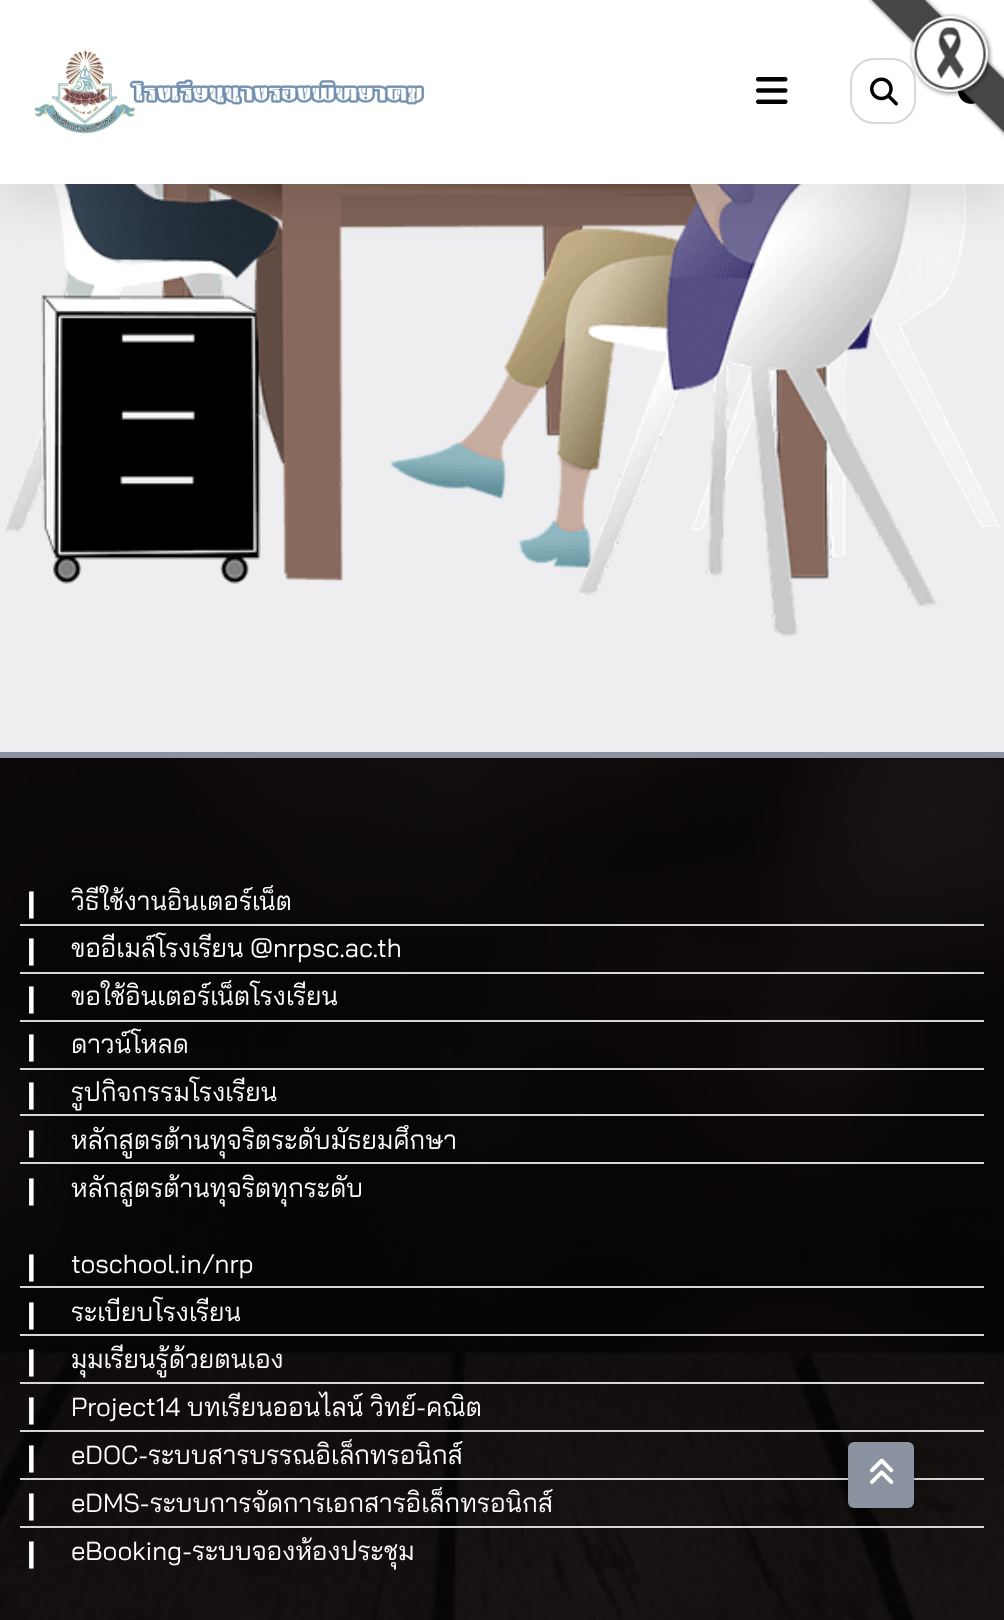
<!DOCTYPE html>
<meta charset="utf-8">
<style>body { margin: 0 } canvas { display: block }</style>
<canvas id="canvas" width="1004" height="1620"></canvas>
<script type="module">
  const canvas = document.getElementById("canvas");
  const g = canvas.getContext("2d");
  g.miterLimit = 4;
  g.fontKerning = "normal";
  function drawText(s, x, y, [font, color]) {
    g.font = font;
    g.fillStyle = color;
    g.fillText(s, x, y);
  }
  function fillBox(x, y, w, h, color) {
    g.fillStyle = color;
    g.fillRect(x, y, w, h);
  }
  function fillRounded(x, y, w, h, r, color) {
    g.fillStyle = color;
    g.beginPath();
    g.roundRect(x, y, w, h, r);
    g.fill();
  }
  async function drawPicture(src, x, y, w, h) {
    const img = new Image();
    img.src = src;
    await img.decode();
    g.drawImage(img, x, y, w, h);
  }

  const s1 = ["27px DejaVu Sans", "#FFFFFF"];
  const s2 = ["26px Bai Jamjuree", "#FFFFFF"];

  fillBox(0, 0, 1004, 1620, "#EEEEF0");
  await drawPicture("pic6.png", 5, 184, 995, 453);
  g.fillStyle = "rgba(20, 19, 24, 0.1)";
  g.filter = "blur(20px)";
  g.beginPath();
  g.rect(0, 20, 1004, 184);
  g.fill();
  g.filter = "none";
  fillBox(0, 0, 1004, 184, "#FFFFFF");
  g.beginPath();
  g.roundRect(851, 59, 64, 64, 23);
  g.strokeStyle = "#D7D7D7";
  g.lineWidth = 2;
  g.stroke();
  await drawPicture("pic4.png", 870, 77, 28, 29);
  await drawPicture("pic5.png", 958, 89, 18, 15);
  await drawPicture("pic1.png", 867, 0, 137, 137);
  await drawPicture("pic2.png", 33, 50, 391, 84);
  await drawPicture("pic3.png", 756, 77, 32, 27);
  await drawPicture("pic7.png", 0, 758, 1004, 862);
  fillBox(0, 752, 1004, 6, "#8B92A0");
  fillBox(20, 924, 964, 2, "#D7D7D7");
  drawText("❙", 20, 912, s1);
  drawText("วิธีใช้งานอินเตอร์เน็ต", 71, 910, s2);
  fillBox(20, 972, 964, 2, "#D7D7D7");
  drawText("❙", 20, 959, s1);
  drawText("ขออีเมล์โรงเรียน @nrpsc.ac.th", 71, 957, s2);
  fillBox(20, 1020, 964, 2, "#D7D7D7");
  drawText("❙", 20, 1007, s1);
  drawText("ขอใช้อินเตอร์เน็ตโรงเรียน", 71, 1005, s2);
  fillBox(20, 1068, 964, 2, "#D7D7D7");
  drawText("❙", 20, 1055, s1);
  drawText("ดาวน์โหลด", 71, 1053, s2);
  fillBox(20, 1114, 964, 2, "#D7D7D7");
  drawText("❙", 20, 1103, s1);
  drawText("รูปกิจกรรมโรงเรียน", 71, 1101, s2);
  fillBox(20, 1162, 964, 2, "#D7D7D7");
  drawText("❙", 20, 1151, s1);
  drawText("หลักสูตรต้านทุจริตระดับมัธยมศึกษา", 71, 1149, s2);
  drawText("❙", 20, 1199, s1);
  drawText("หลักสูตรต้านทุจริตทุกระดับ", 71, 1197, s2);
  fillBox(20, 1286, 964, 2, "#D7D7D7");
  drawText("❙", 20, 1275, s1);
  drawText("toschool.in/nrp", 71, 1273, s2);
  fillBox(20, 1334, 964, 2, "#D7D7D7");
  drawText("❙", 20, 1323, s1);
  drawText("ระเบียบโรงเรียน", 71, 1321, s2);
  fillBox(20, 1382, 964, 2, "#D7D7D7");
  drawText("❙", 20, 1370, s1);
  drawText("มุมเรียนรู้ด้วยตนเอง", 71, 1368, s2);
  fillBox(20, 1430, 964, 2, "#D7D7D7");
  drawText("❙", 20, 1418, s1);
  drawText("Project14 บทเรียนออนไลน์ วิทย์-คณิต", 71, 1416, s2);
  fillBox(20, 1478, 964, 2, "#D7D7D7");
  drawText("❙", 20, 1466, s1);
  drawText("eDOC-ระบบสารบรรณอิเล็กทรอนิกส์", 71, 1464, s2);
  fillBox(20, 1526, 964, 2, "#D7D7D7");
  drawText("❙", 20, 1514, s1);
  drawText("eDMS-ระบบการจัดการเอกสารอิเล็กทรอนิกส์", 71, 1512, s2);
  drawText("❙", 20, 1562, s1);
  drawText("eBooking-ระบบจองห้องประชุม", 71, 1560, s2);
  g.fillStyle = "rgba(0, 0, 0, 0.2)";
  g.filter = "blur(10px)";
  g.beginPath();
  g.roundRect(848, 1442, 66, 66, 6);
  g.fill();
  g.filter = "none";
  fillRounded(848, 1442, 66, 66, 6, "#8B92A0");
  await drawPicture("pic8.png", 870, 1458, 24, 26);
</script>
